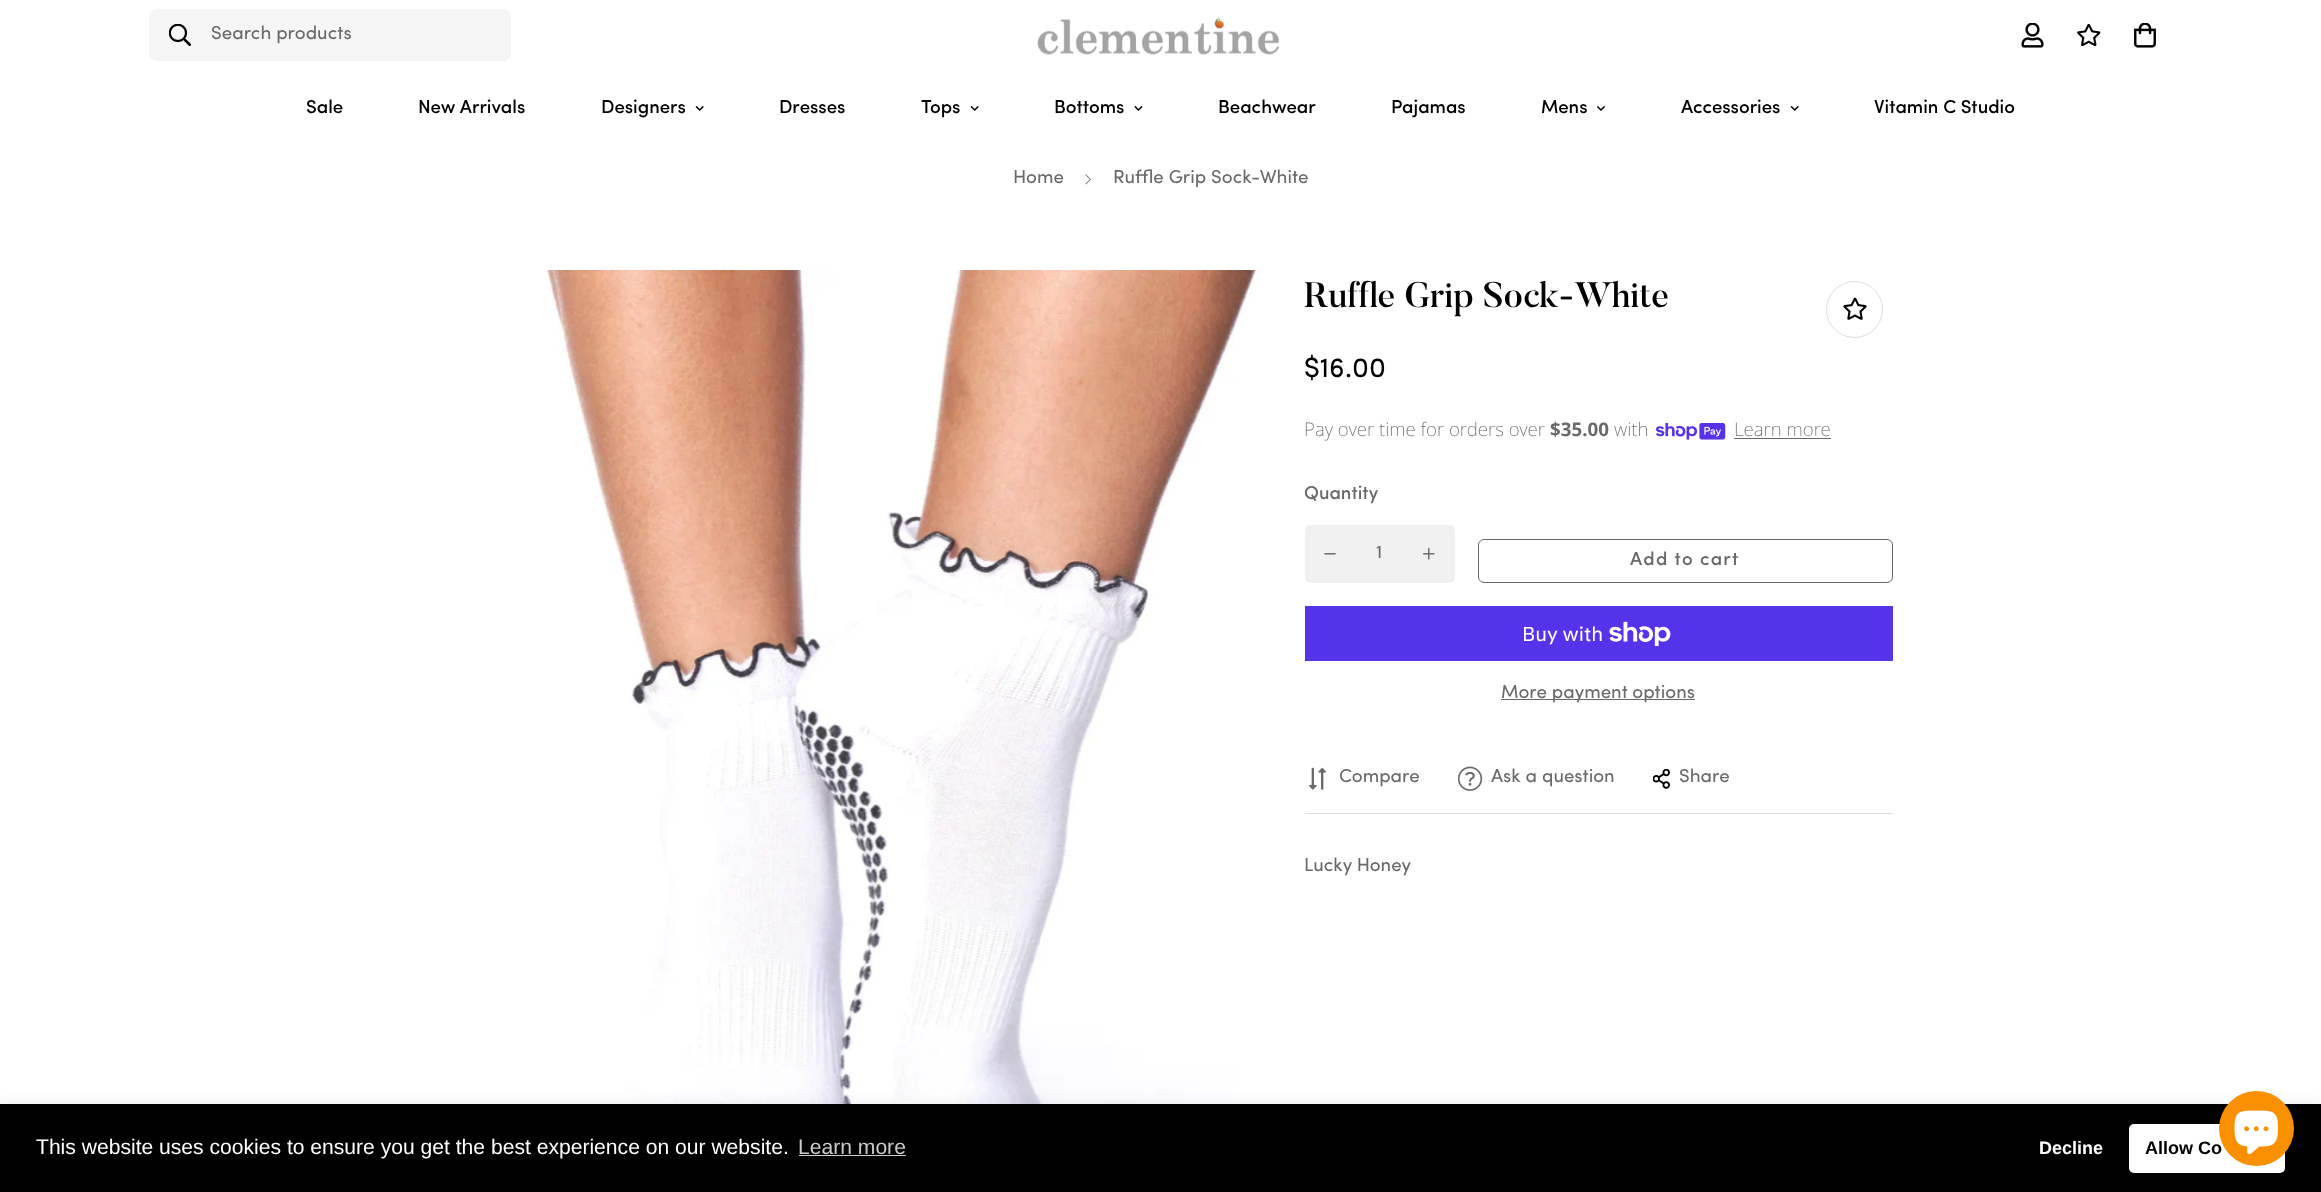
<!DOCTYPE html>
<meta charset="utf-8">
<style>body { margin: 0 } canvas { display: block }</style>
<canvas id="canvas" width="2321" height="1192"></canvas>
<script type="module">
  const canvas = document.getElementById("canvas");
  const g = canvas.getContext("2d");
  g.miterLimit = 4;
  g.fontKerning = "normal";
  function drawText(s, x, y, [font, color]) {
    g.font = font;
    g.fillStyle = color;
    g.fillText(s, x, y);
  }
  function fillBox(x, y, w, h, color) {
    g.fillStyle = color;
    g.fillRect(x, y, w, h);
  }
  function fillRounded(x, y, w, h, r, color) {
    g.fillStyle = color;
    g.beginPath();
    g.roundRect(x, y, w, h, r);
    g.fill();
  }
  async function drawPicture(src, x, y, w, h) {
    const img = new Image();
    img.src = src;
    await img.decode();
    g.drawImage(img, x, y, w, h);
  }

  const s1 = ["18.75px Sofia", "#696969"];
  const s2 = ["500 18.75px Sofia", "#000000"];
  const s3 = ["500 35.25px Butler", "#000000"];
  const s4 = ["28px Sofia", "#000000"];
  const s5 = ["200 18.75px Noto Sans", "#696969"];
  const s6 = ["bold 18.75px Noto Sans", "#696969"];
  const s7 = ["500 18.75px Sofia", "#696969"];
  const s8 = ["20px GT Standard", "#FFFFFF"];
  const s9 = ["21.1px Liberation Sans", "#FFFFFF"];
  const s10 = ["21.1px Liberation Sans", "#CCCCCC"];
  const s11 = ["bold 18px Liberation Sans", "#FFFFFF"];
  const s12 = ["bold 18px Liberation Sans", "#000000"];

  fillBox(0, 0, 2321, 1192, "#FFFFFF");
  fillRounded(149, 9, 362, 52, 8, "#F5F5F5");
  await drawPicture("pic1.png", 169, 24, 22, 22);
  drawText("Search products", 211, 39, s1);
  await drawPicture("pic2.png", 1037, 16, 243, 39);
  await drawPicture("pic3.png", 2021, 23, 23, 25);
  await drawPicture("pic4.png", 2077, 23, 24, 24);
  await drawPicture("pic5.png", 2134, 23, 22, 25);
  drawText("Sale", 306, 113, s2);
  drawText("New Arrivals", 418, 113, s2);
  drawText("Designers", 601, 113, s2);
  await drawPicture("pic6.png", 695, 106, 9, 5);
  drawText("Dresses", 779, 113, s2);
  drawText("Tops", 921, 113, s2);
  await drawPicture("pic6.png", 970, 106, 9, 5);
  drawText("Bottoms", 1054, 113, s2);
  await drawPicture("pic7.png", 1134, 106, 9, 5);
  drawText("Beachwear", 1218, 113, s2);
  drawText("Pajamas", 1391, 113, s2);
  drawText("Mens", 1541, 113, s2);
  await drawPicture("pic8.png", 1597, 106, 8, 5);
  drawText("Accessories", 1681, 113, s2);
  await drawPicture("pic6.png", 1790, 106, 9, 5);
  drawText("Vitamin C Studio", 1874, 113, s2);
  drawText("Home", 1013, 183, s1);
  await drawPicture("pic9.png", 1085, 174, 6, 11);
  drawText("Ruffle Grip Sock-White", 1113, 183, s1);
  await drawPicture("pic10.png", 545, 270, 717, 834);
  drawText("Ruffle Grip Sock-White", 1304, 307, s3);
  g.beginPath();
  g.arc(1854.5, 309.5, 28, 0, Math.PI * 2);
  g.strokeStyle = "#DEDEDE";
  g.stroke();
  await drawPicture("pic11.png", 1843, 297, 24, 23);
  drawText("$16.00", 1304, 377, s4);
  drawText("Pay over time for orders over", 1304, 436, s5);
  drawText("$35.00", 1550, 436, s6);
  drawText("with", 1614, 436, s5);
  await drawPicture("pic12.png", 1656, 423, 70, 17);
  drawText("Learn more", 1734, 436, s5);
  fillBox(1734, 438, 97, 1, "#696969");
  drawText("Quantity", 1304, 499, s7);
  fillRounded(1305, 525, 150, 58, 5, "#F1F1F1");
  await drawPicture("pic13.png", 1324, 553, 12, 2);
  drawText("1", 1376, 558, s1);
  await drawPicture("pic14.png", 1423, 548, 12, 12);
  g.beginPath();
  g.roundRect(1478.5, 539.5, 414, 43, 5.5);
  g.strokeStyle = "#696969";
  g.stroke();
  g.letterSpacing = "1.25px";
  drawText("Add to cart", 1630, 565, s7);
  fillBox(1305, 606, 588, 55, "#5433EB");
  g.letterSpacing = "0px";
  drawText("Buy with", 1522, 641, s8);
  await drawPicture("pic15.png", 1609, 621, 62, 25);
  fillBox(1501, 699, 194, 1, "#696969");
  drawText("More payment options", 1501, 698, s1);
  fillBox(1305, 813, 588, 1, "#DEDEDE");
  await drawPicture("pic16.png", 1308, 767, 18, 23);
  drawText("Compare", 1339, 782, s1);
  await drawPicture("pic17.png", 1458, 766, 25, 25);
  drawText("Ask a question", 1491, 782, s1);
  await drawPicture("pic18.png", 1653, 769, 17, 20);
  drawText("Share", 1679, 782, s1);
  drawText("Lucky Honey", 1304, 871, s1);
  g.fillStyle = "rgba(0, 0, 0, 0.15)";
  g.filter = "blur(9.5px)";
  g.beginPath();
  g.rect(0, 1110, 2321, 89);
  g.fill();
  g.filter = "none";
  fillBox(0, 1104, 2321, 88, "#000000");
  drawText("This website uses cookies to ensure you get the best experience on our website.", 36, 1154, s9);
  drawText("Learn more", 798, 1154, s10);
  fillBox(799, 1155, 107, 1, "#CCCCCC");
  drawText("Decline", 2039, 1154, s11);
  fillRounded(2129, 1124, 156, 49, 5, "#FFFFFF");
  drawText("Allow Co", 2145, 1154, s12);
  g.fillStyle = "#F99000";
  g.beginPath();
  g.arc(2256.5, 1128.5, 37.5, 0, Math.PI * 2);
  g.fill();
  await drawPicture("pic19.png", 2234, 1110, 44, 45);
</script>
